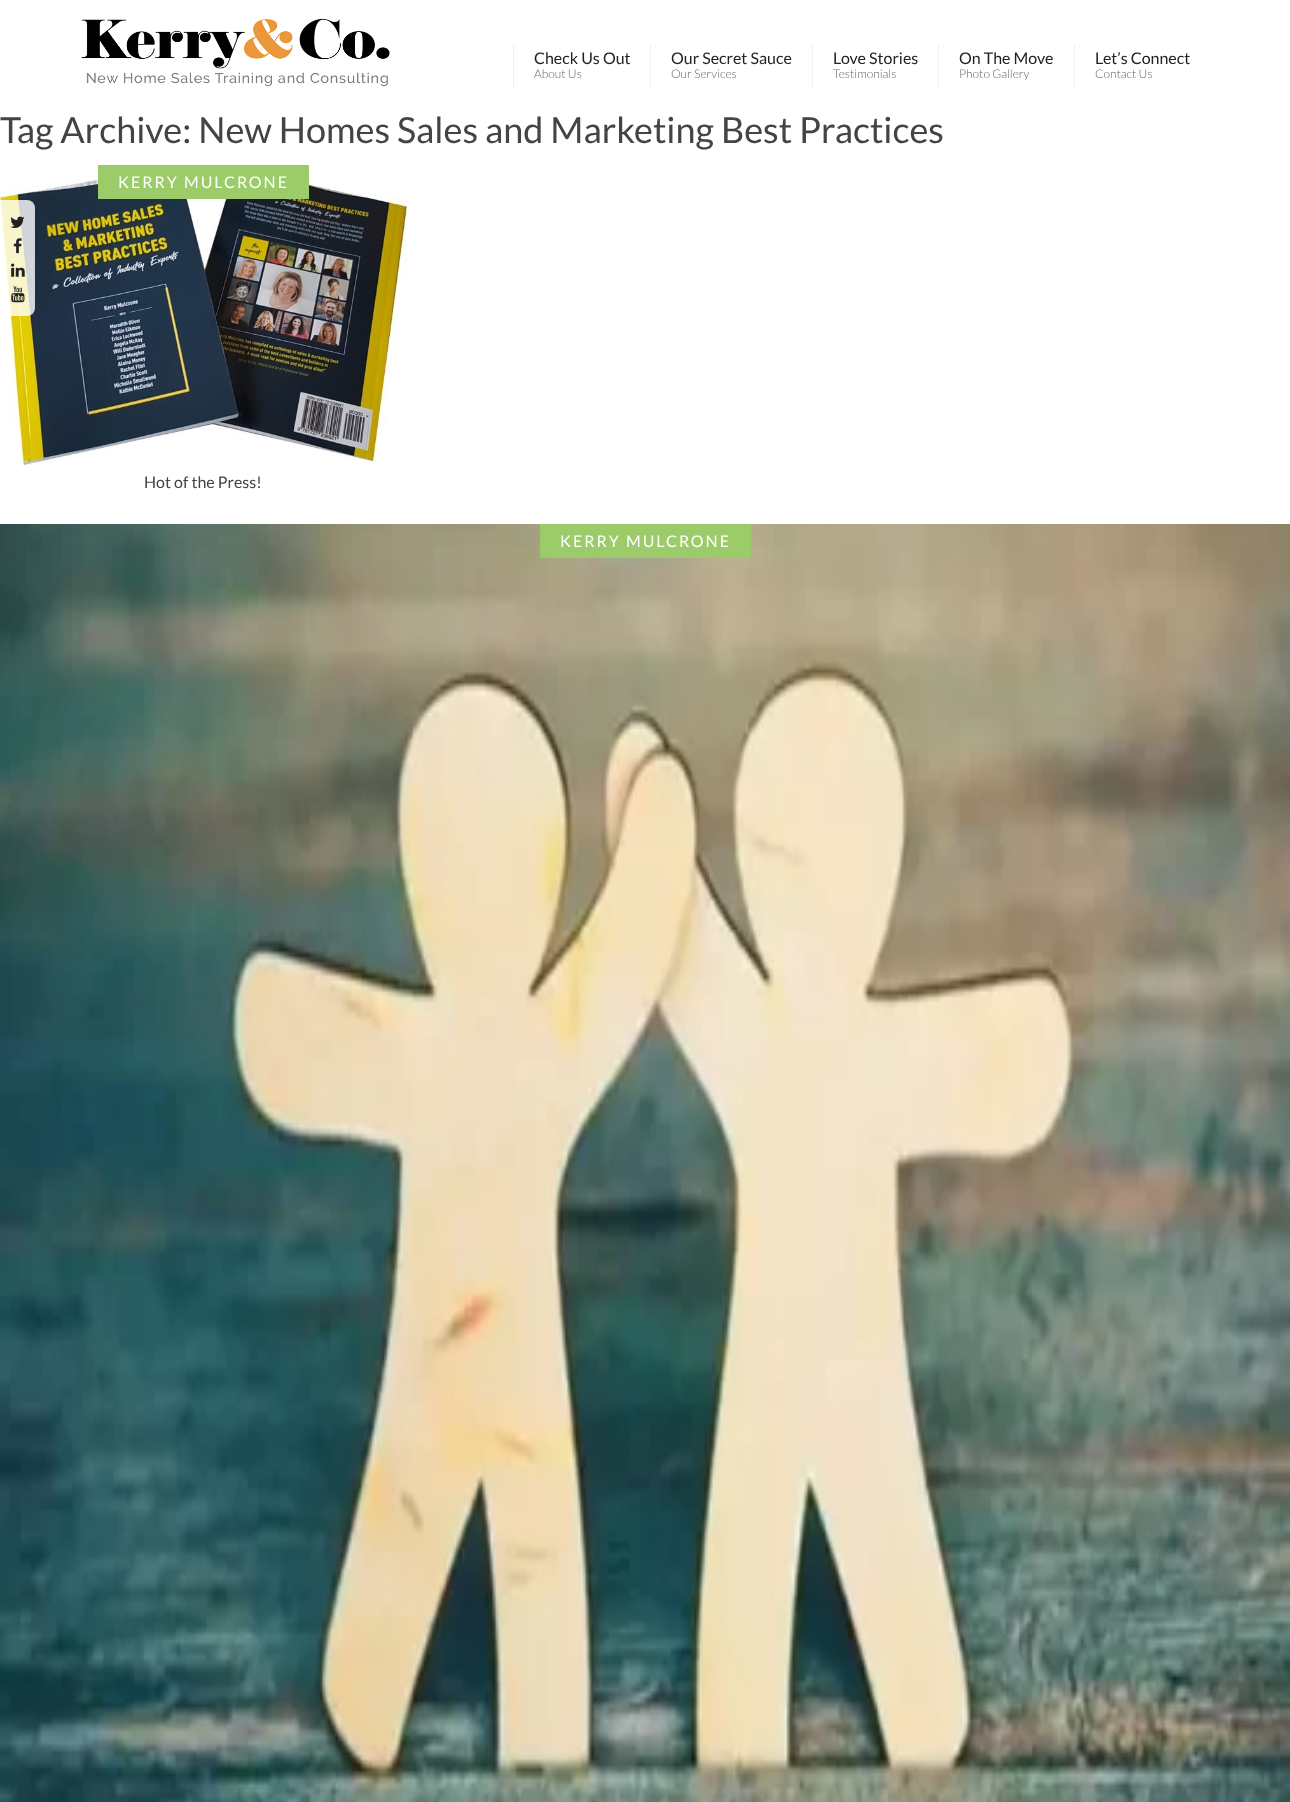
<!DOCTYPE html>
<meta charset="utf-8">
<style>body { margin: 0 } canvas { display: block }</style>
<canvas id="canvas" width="1290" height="1802"></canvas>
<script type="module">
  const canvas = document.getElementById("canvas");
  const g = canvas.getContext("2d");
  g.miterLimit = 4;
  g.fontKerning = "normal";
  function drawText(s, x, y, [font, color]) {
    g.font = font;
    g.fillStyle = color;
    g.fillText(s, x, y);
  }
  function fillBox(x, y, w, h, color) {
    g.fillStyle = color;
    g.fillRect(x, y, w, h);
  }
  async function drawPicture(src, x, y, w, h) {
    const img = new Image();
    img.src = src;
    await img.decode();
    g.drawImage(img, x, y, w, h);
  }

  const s1 = ["16px Lato", "#222222"];
  const s2 = ["300 12px Lato", "#666666"];
  const s3 = ["36px Lato", "#444444"];
  const s4 = ["16px Lato", "#FFFFFF"];
  const s5 = ["16px Lato", "#444444"];

  fillBox(0, 0, 1290, 1802, "#FFFFFF");
  await drawPicture("pic1.png", 81, 18, 309, 69);
  fillBox(513, 45, 1, 42, "#EFEFEF");
  drawText("Check Us Out", 534, 64, s1);
  drawText("About Us", 534, 78, s2);
  fillBox(650, 45, 1, 42, "#EFEFEF");
  drawText("Our Secret Sauce", 671, 64, s1);
  drawText("Our Services", 671, 78, s2);
  fillBox(812, 45, 1, 42, "#EFEFEF");
  drawText("Love Stories", 833, 64, s1);
  drawText("Testimonials", 833, 78, s2);
  fillBox(938, 45, 1, 42, "#EFEFEF");
  drawText("On The Move", 959, 64, s1);
  drawText("Photo Gallery", 959, 78, s2);
  fillBox(1074, 45, 1, 42, "#EFEFEF");
  drawText("Let’s Connect", 1095, 64, s1);
  drawText("Contact Us", 1095, 78, s2);
  drawText("Tag Archive: New Homes Sales and Marketing Best Practices", 0, 143, s3);
  await drawPicture("pic2.png", 0, 165, 407, 300);
  fillBox(98, 165, 211, 34, "#9CCB6A");
  g.letterSpacing = "2px";
  drawText("KERRY MULCRONE", 118, 188, s4);
  g.letterSpacing = "0px";
  drawText("Hot of the Press!", 144, 488, s5);
  g.fillStyle = "rgba(255, 255, 255, 0.8)";
  g.beginPath();
  g.roundRect(0, 200, 35, 116, [0, 8, 8, 0]);
  g.fill();
  await drawPicture("pic3.png", 10, 216, 15, 12);
  await drawPicture("pic4.png", 13, 238, 9, 16);
  await drawPicture("pic5.png", 11, 263, 14, 14);
  await drawPicture("pic6.png", 11, 286, 14, 17);
  await drawPicture("pic7.png", 0, 524, 1290, 1278);
  fillBox(540, 524, 211, 34, "#9CCB6A");
  g.letterSpacing = "2px";
  drawText("KERRY MULCRONE", 560, 547, s4);
</script>
